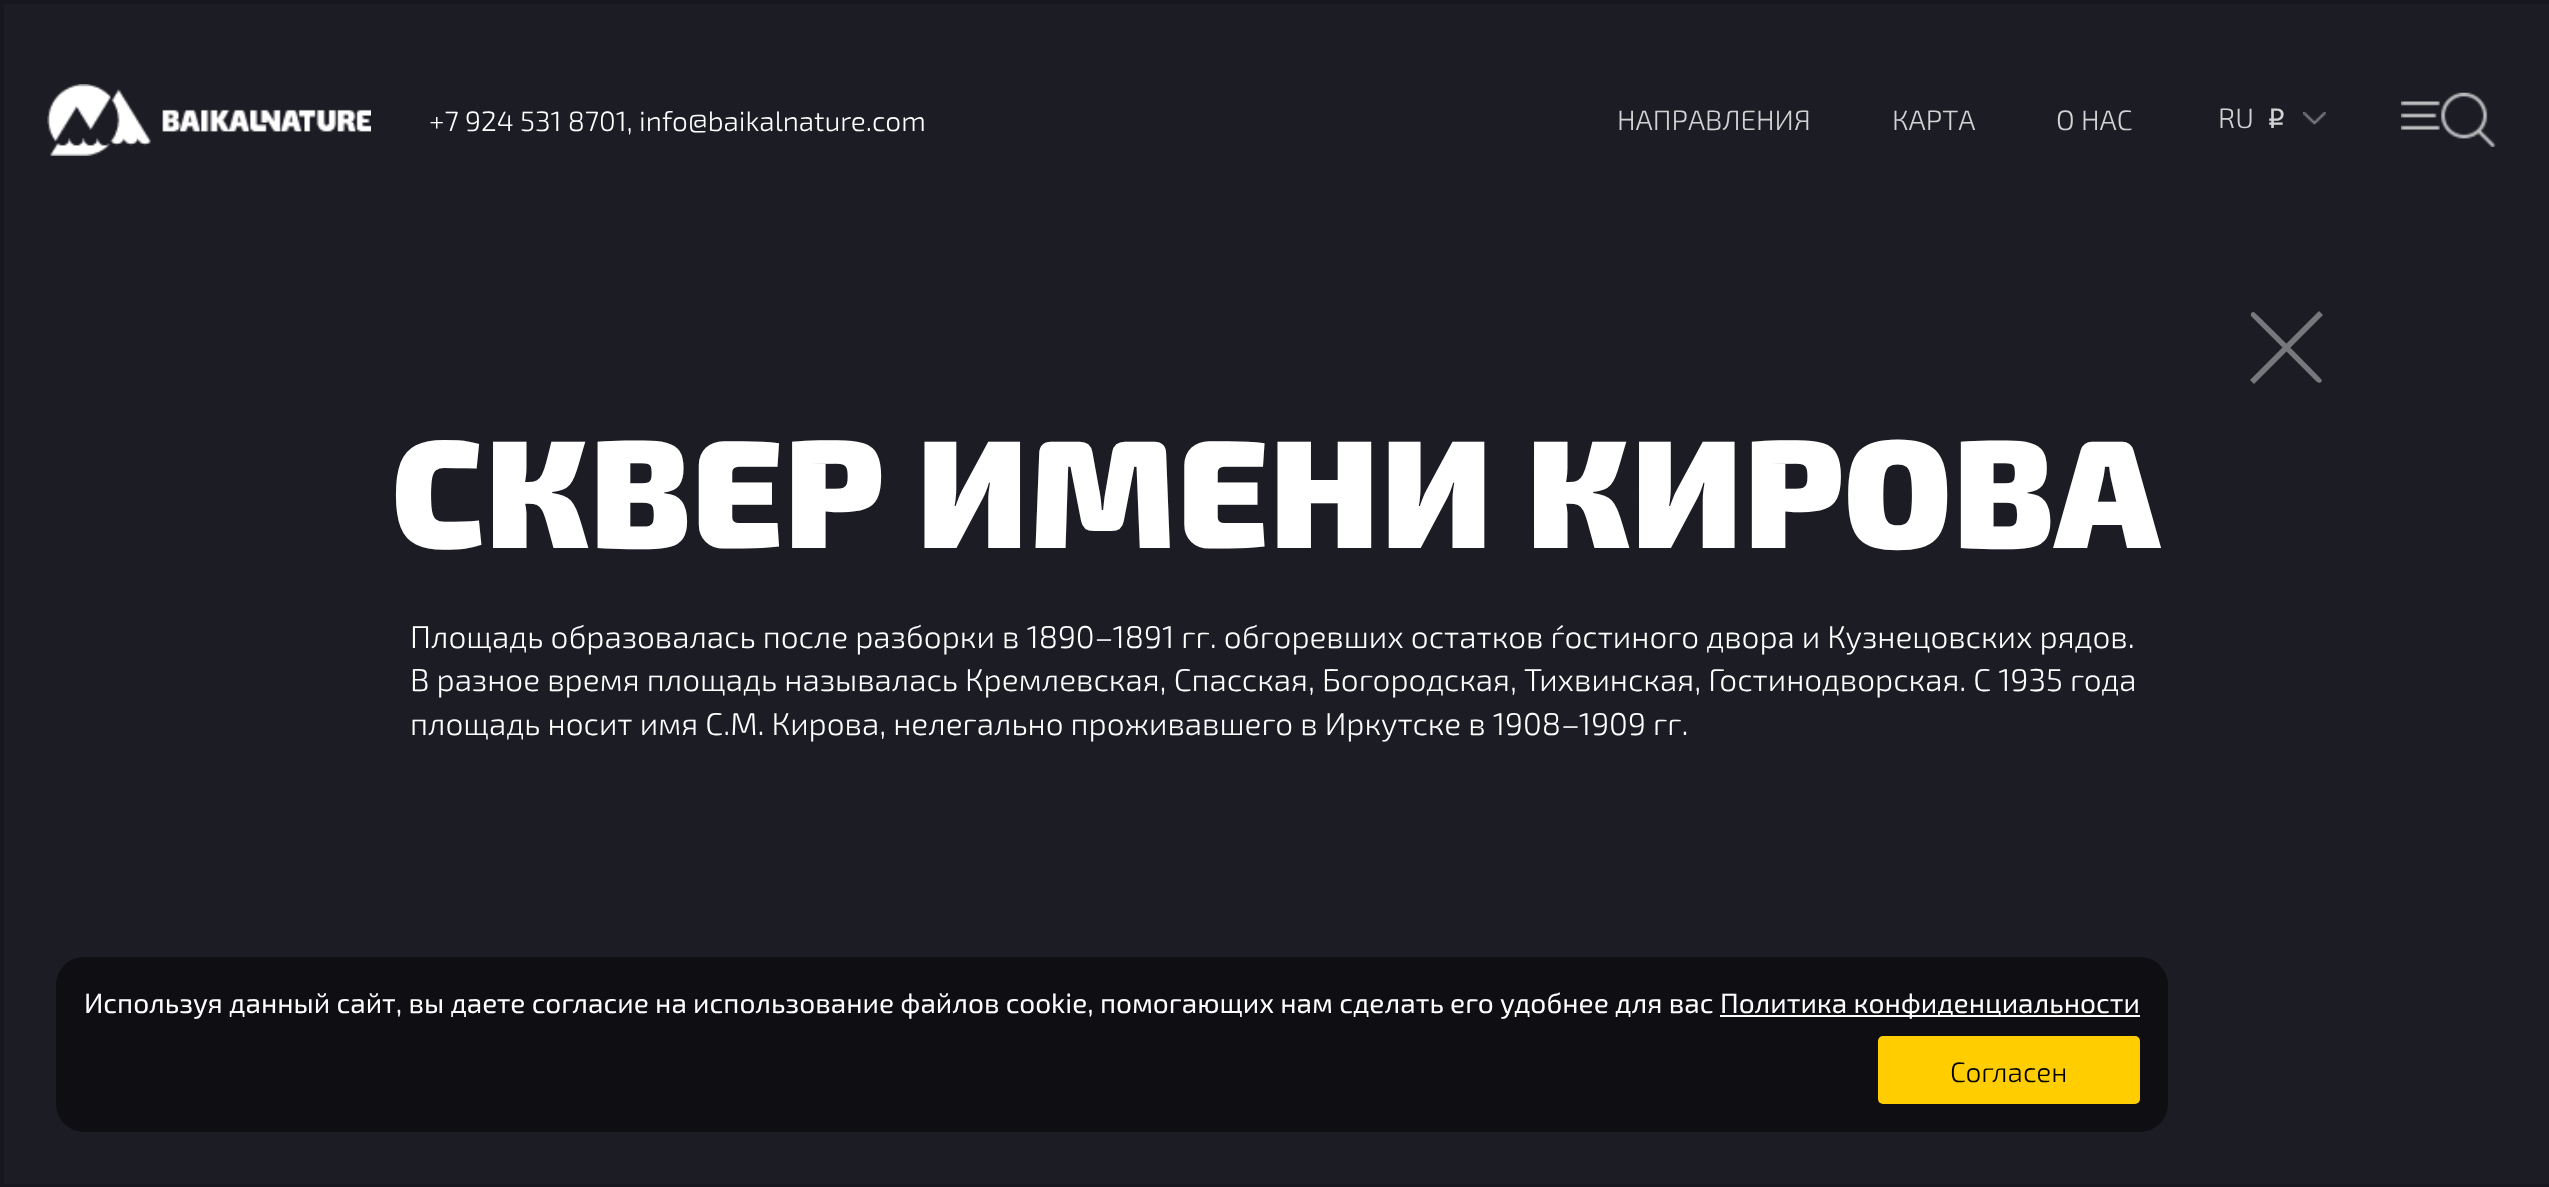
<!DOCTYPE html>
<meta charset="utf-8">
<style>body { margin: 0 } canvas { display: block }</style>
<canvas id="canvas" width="2549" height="1187"></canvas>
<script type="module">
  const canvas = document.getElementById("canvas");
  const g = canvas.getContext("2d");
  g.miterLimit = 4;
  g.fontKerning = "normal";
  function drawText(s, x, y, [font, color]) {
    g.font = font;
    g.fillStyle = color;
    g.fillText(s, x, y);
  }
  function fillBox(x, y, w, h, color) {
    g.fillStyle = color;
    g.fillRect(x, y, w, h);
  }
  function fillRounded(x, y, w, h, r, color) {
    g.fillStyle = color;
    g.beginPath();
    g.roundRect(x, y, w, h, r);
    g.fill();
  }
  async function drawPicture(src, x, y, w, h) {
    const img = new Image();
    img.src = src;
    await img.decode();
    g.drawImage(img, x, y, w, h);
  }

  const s1 = ["300 28px 'Exo 2'", "#FFFFFF"];
  const s2 = ["300 28px 'Exo 2'", "#D2D2D3"];
  const s3 = ["28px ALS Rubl", "#D2D2D3"];
  const s4 = ["900 154px 'Exo 2'", "#FFFFFF"];
  const s5 = ["300 31.5px 'Exo 2'", "#FFFFFF"];
  const s6 = ["28px 'Exo 2'", "#FFFFFF"];
  const s7 = ["300 28px 'Exo 2'", "#000000"];

  fillBox(0, 0, 2549, 1187, "#1C1C25");
  g.strokeStyle = "#17171F";
  g.lineWidth = 4;
  g.strokeRect(2, 2, 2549, 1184);
  await drawPicture("pic1.png", 47, 84, 324, 72);
  drawText("+7 924 531 8701, info@baikalnature.com", 429, 131, s1);
  drawText("НАПРАВЛЕНИЯ", 1617, 130, s2);
  drawText("КАРТА", 1892, 130, s2);
  drawText("О НАС", 2056, 130, s2);
  drawText("RU", 2218, 128, s2);
  drawText("i", 2265, 128, s3);
  await drawPicture("pic2.png", 2303, 112, 23, 13);
  await drawPicture("pic3.png", 2401, 92, 95, 55);
  g.fillStyle = "#77777C";
  g.beginPath();
  g.moveTo(2255, 313);
  g.bezierCurveTo(2262, 319, 2321, 378, 2322, 380);
  g.bezierCurveTo(2322, 381, 2321, 382, 2320, 383);
  g.lineTo(2317, 382);
  g.lineTo(2306, 371);
  g.lineTo(2251, 316);
  g.lineTo(2251, 314);
  g.bezierCurveTo(2251, 312, 2254, 311, 2255, 313);
  g.closePath();
  g.fill();
  g.beginPath();
  g.moveTo(2250, 380);
  g.lineTo(2319, 311);
  g.lineTo(2323, 315);
  g.lineTo(2254, 384);
  g.closePath();
  g.fill();
  drawText("СКВЕР ИМЕНИ КИРОВА", 391, 548, s4);
  drawText("Площадь образовалась после разборки в 1890–1891 гг. обгоревших остатков ѓостиного двора и Кузнецовских рядов.", 410, 648, s5);
  drawText("В разное время площадь называлась Кремлевская, Спасская, Богородская, Тихвинская, Гостинодворская. С 1935 года", 410, 691, s5);
  drawText("площадь носит имя С.М. Кирова, нелегально проживавшего в Иркутске в 1908–1909 гг.", 410, 735, s5);
  fillRounded(56, 957, 2112, 175, 28, "#0E0E13");
  drawText("Используя данный сайт, вы даете согласие на использование файлов cookie, помогающих нам сделать его удобнее для вас", 84, 1013, s6);
  fillBox(1720, 1015, 420, 2, "#FFFFFF");
  drawText("Политика конфиденциальности", 1720, 1013, s6);
  fillRounded(1878, 1036, 262, 68, 5, "#FFCD00");
  drawText("Согласен", 1950, 1082, s7);
</script>
